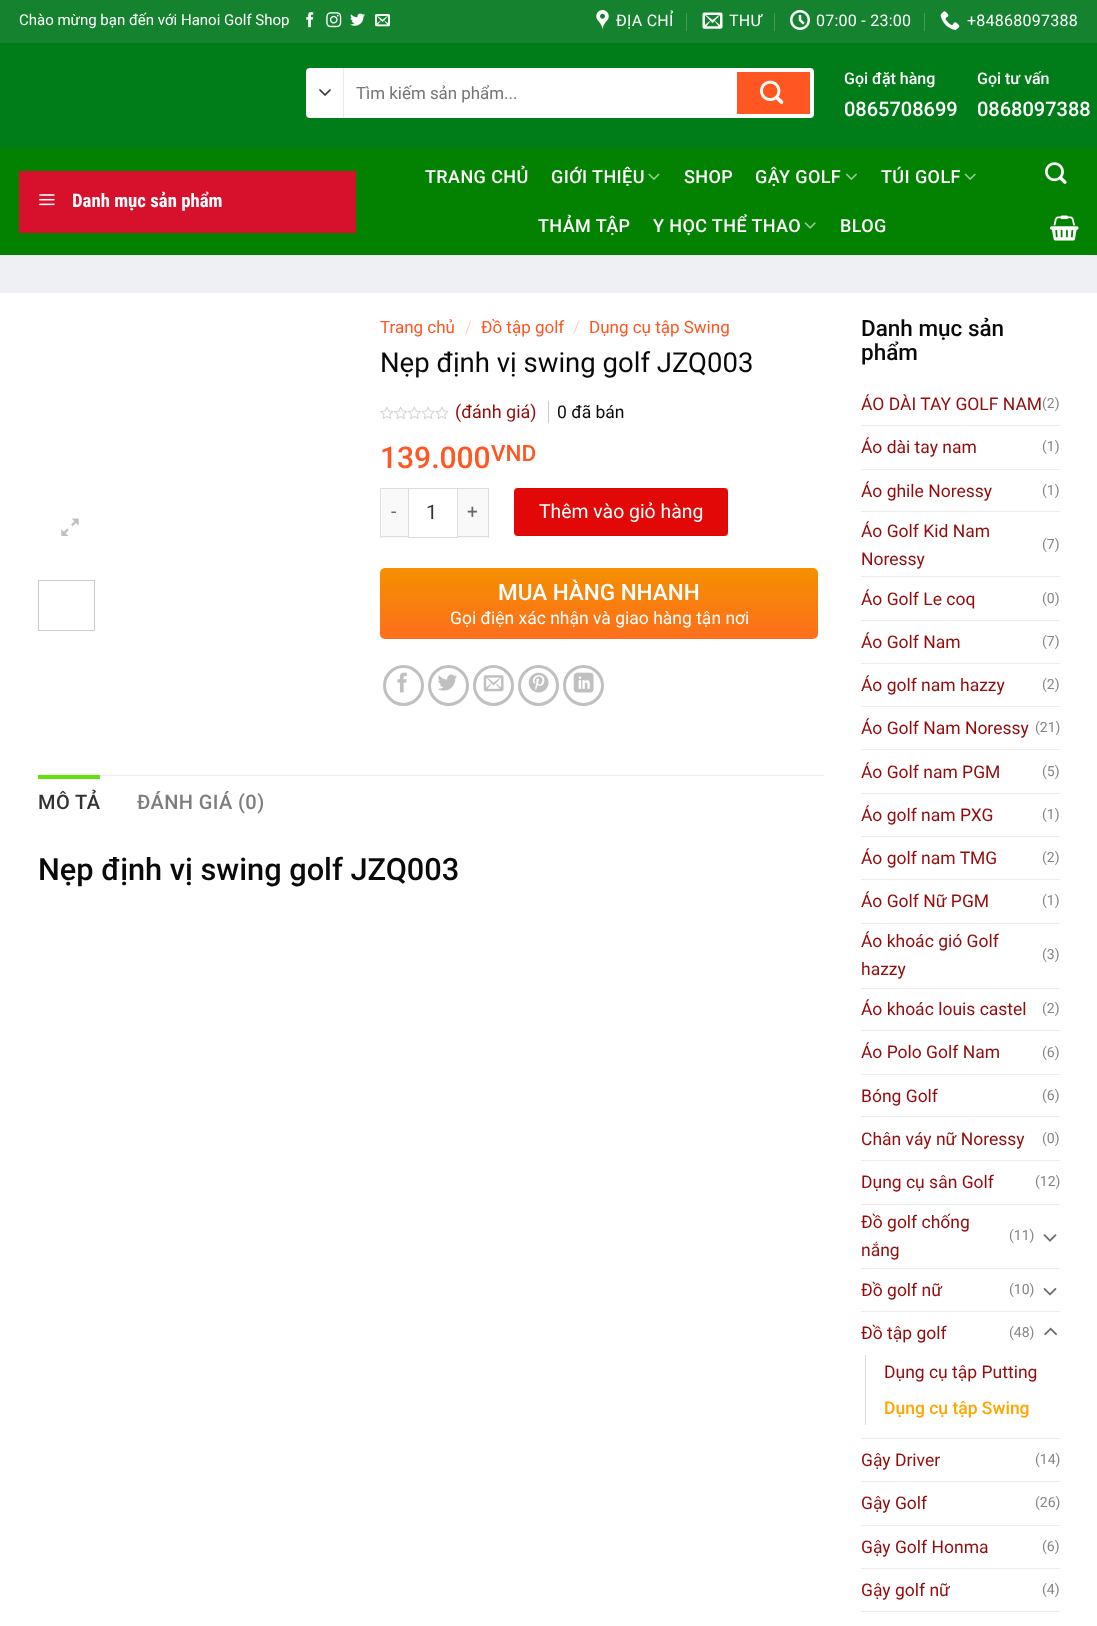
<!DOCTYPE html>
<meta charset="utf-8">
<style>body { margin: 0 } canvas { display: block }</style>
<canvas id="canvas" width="1097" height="1626"></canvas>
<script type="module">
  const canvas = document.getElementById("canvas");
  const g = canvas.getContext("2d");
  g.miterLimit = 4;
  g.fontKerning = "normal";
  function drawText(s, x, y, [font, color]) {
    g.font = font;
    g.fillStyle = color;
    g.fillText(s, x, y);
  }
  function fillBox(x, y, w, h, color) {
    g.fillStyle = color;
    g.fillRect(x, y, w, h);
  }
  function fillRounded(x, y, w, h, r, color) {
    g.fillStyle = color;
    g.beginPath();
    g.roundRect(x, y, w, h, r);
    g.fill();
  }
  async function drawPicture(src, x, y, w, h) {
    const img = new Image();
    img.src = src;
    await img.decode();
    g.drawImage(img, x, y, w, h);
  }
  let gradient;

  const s1 = ["15px Roboto", "#FFFFFF"];
  const s2 = ["16px Roboto", "#FFFFFF"];
  const s3 = ["16.9px Roboto", "#757575"];
  const s4 = ["500 16px Roboto", "#FFFFFF"];
  const s5 = ["500 20px Roboto", "#FFFFFF"];
  const s6 = ["bold 18.75px Roboto Condensed", "#FFFFFF"];
  const s7 = ["500 18px Roboto", "#FFFFFF"];
  const s8 = ["17px Roboto", "#FF5622"];
  const s9 = ["300 17px Roboto", "#FFC4B2"];
  const s10 = ["27.5px Roboto", "#0A0A0A"];
  const s11 = ["18px Roboto", "#930B0B"];
  const s12 = ["17.5px Roboto", "#0A0A0A"];
  const s13 = ["500 30px Roboto", "#FF5622"];
  const s14 = ["500 22.5px Roboto", "#FF5622"];
  const s15 = ["19px Roboto", "#666666"];
  const s16 = ["20px Roboto", "#333333"];
  const s17 = ["19.4px Roboto", "#FFFFFF"];
  const s18 = ["500 22.5px Roboto", "#FFFFFF"];
  const s19 = ["17.5px Roboto", "#FFFFFF"];
  const s20 = ["500 20px Roboto", "#333333"];
  const s21 = ["500 20px Roboto", "#7D7D7D"];
  const s22 = ["500 30.75px Roboto", "#0A0A0A"];
  const s23 = ["500 22.5px Roboto", "#0A0A0A"];
  const s24 = ["17.5px Roboto", "#930B0B"];
  const s25 = ["14px Roboto", "#858585"];
  const s26 = ["500 17.5px Roboto", "#FFA500"];

  fillBox(0, 0, 1097, 1626, "#EFF0F3");
  fillBox(0, 43, 1097, 106, "#007C18");
  fillBox(0, 0, 1097, 43, "#14822E");
  drawText("Chào mừng bạn đến với Hanoi Golf Shop", 19, 25, s1);
  await drawPicture("pic1.png", 306, 12, 8, 16);
  await drawPicture("pic2.png", 326, 12, 16, 16);
  await drawPicture("pic3.png", 350, 13, 15, 13);
  await drawPicture("pic4.png", 375, 14, 15, 13);
  await drawPicture("pic5.png", 596, 10, 13, 20);
  g.letterSpacing = "0.25px";
  drawText("ĐỊA CHỈ", 616, 26, s2);
  fillBox(686, 13, 1, 18, "#439B58");
  await drawPicture("pic6.png", 702, 12, 21, 17);
  drawText("THƯ", 729, 26, s2);
  fillBox(774, 13, 1, 18, "#439B58");
  await drawPicture("pic7.png", 790, 10, 20, 20);
  drawText("07:00 - 23:00", 816, 26, s2);
  fillBox(924, 13, 1, 18, "#439B58");
  await drawPicture("pic8.png", 940, 11, 20, 19);
  drawText("+84868097388", 967, 26, s2);
  g.beginPath();
  g.roundRect(306, 68, 38, 50, [4, 0, 0, 4]);
  g.fill();
  g.beginPath();
  g.moveTo(320, 90);
  g.lineTo(325, 95);
  g.lineTo(330, 90);
  g.strokeStyle = "#333333";
  g.lineWidth = 1.7;
  g.lineCap = "round";
  g.lineJoin = "round";
  g.stroke();
  fillBox(343, 68, 1, 50, "#EAEAEA");
  fillBox(344, 68, 389, 50, "#FFFFFF");
  g.letterSpacing = "0px";
  drawText("Tìm kiếm sản phẩm...", 356, 99, s3);
  g.fillStyle = "#FF5622";
  g.beginPath();
  g.roundRect(735, 70, 77, 46, [0, 2, 2, 0]);
  g.fill();
  g.strokeStyle = "#FFFFFF";
  g.lineWidth = 4;
  g.lineJoin = "miter";
  g.stroke();
  await drawPicture("pic9.png", 760, 80, 24, 24);
  drawText("Gọi đặt hàng", 844, 84, s4);
  drawText("0865708699", 844, 116, s5);
  drawText("Gọi tư vấn", 977, 84, s4);
  drawText("0868097388", 977, 116, s5);
  fillBox(0, 149, 1097, 106, "#028200");
  fillBox(19, 171, 337, 62, "#D7102C");
  await drawPicture("pic10.png", 39, 194, 16, 12);
  drawText("Danh mục sản phẩm", 72, 207, s6);
  g.letterSpacing = "0.4px";
  drawText("TRANG CHỦ", 425, 183, s7);
  drawText("GIỚI THIỆU", 551, 183, s7);
  await drawPicture("pic11.png", 648, 173, 12, 7);
  drawText("SHOP", 684, 183, s7);
  drawText("GẬY GOLF", 755, 183, s7);
  await drawPicture("pic12.png", 845, 173, 12, 7);
  drawText("TÚI GOLF", 881, 183, s7);
  await drawPicture("pic13.png", 964, 173, 12, 7);
  drawText("THẢM TẬP", 538, 232, s7);
  drawText("Y HỌC THỂ THAO", 653, 232, s7);
  await drawPicture("pic14.png", 804, 222, 12, 7);
  drawText("BLOG", 840, 232, s7);
  await drawPicture("pic15.png", 1045, 162, 22, 22);
  await drawPicture("pic16.png", 1050, 215, 29, 26);
  fillBox(0, 293, 1097, 1333, "#FFFFFF");
  await drawPicture("pic17.png", 61, 518, 18, 19);
  g.strokeStyle = "#CCCCCC";
  g.lineWidth = 1;
  g.strokeRect(38.5, 580.5, 56, 50);
  g.letterSpacing = "0px";
  drawText("Trang chủ", 380, 333, s8);
  drawText("/", 465, 333, s9);
  drawText("Đồ tập golf", 481, 333, s8);
  drawText("/", 573, 333, s9);
  drawText("Dụng cụ tập Swing", 589, 333, s8);
  drawText("Nẹp định vị swing golf JZQ003", 380, 372, s10);
  await drawPicture("pic18.png", 380, 406, 69, 13);
  drawText("(đánh giá)", 455, 418, s11);
  fillBox(548, 401, 1, 22, "#CCCCCC");
  drawText("0 đã bán", 557, 418, s12);
  drawText("139.000", 380, 468, s13);
  drawText("VND", 491, 461, s14);
  fillBox(381, 489, 27, 49, "#F9F9F9");
  fillBox(380, 488, 28, 1, "#DDDDDD");
  fillBox(380, 536, 28, 1, "#DDDDDD");
  fillBox(380, 488, 1, 50, "#DDDDDD");
  g.letterSpacing = "1px";
  drawText("-", 391, 518, s15);
  g.strokeStyle = "#DDDDDD";
  g.strokeRect(408.5, 488.5, 49, 49);
  g.letterSpacing = "0px";
  drawText("1", 426, 519, s16);
  fillBox(458, 489, 30, 49, "#F9F9F9");
  fillBox(458, 488, 31, 1, "#DDDDDD");
  fillBox(488, 488, 1, 50, "#DDDDDD");
  fillBox(458, 536, 31, 1, "#DDDDDD");
  g.letterSpacing = "1px";
  drawText("+", 467, 518, s15);
  fillRounded(514, 488, 214, 48, 4, "#E20808");
  g.strokeStyle = "rgba(0, 0, 0, 0.05)";
  g.strokeRect(514.5, 488.5, 213, 47);
  g.letterSpacing = "0px";
  drawText("Thêm vào giỏ hàng", 539, 518, s17);
  gradient = g.createLinearGradient(599, 568, 599, 639);
  gradient.addColorStop(0, "#F59000");
  gradient.addColorStop(1, "#FD6E1D");
  g.fillStyle = gradient;
  g.beginPath();
  g.roundRect(380, 568, 438, 71, 5);
  g.fill();
  drawText("MUA HÀNG NHANH", 498, 600, s18);
  drawText("Gọi điện xác nhận và giao hàng tận nơi", 450, 624, s19);
  g.beginPath();
  g.arc(403.5, 685.5, 19, 0, Math.PI * 2);
  g.strokeStyle = "#C0C0C0";
  g.lineWidth = 3;
  g.stroke();
  await drawPicture("pic19.png", 397, 672, 10, 21);
  g.beginPath();
  g.arc(448.5, 685.5, 19, 0, Math.PI * 2);
  g.stroke();
  await drawPicture("pic20.png", 438, 674, 19, 17);
  g.beginPath();
  g.arc(493.5, 685.5, 19, 0, Math.PI * 2);
  g.stroke();
  await drawPicture("pic21.png", 483, 675, 21, 17);
  g.beginPath();
  g.arc(538.5, 685.5, 19, 0, Math.PI * 2);
  g.stroke();
  await drawPicture("pic22.png", 528, 672, 21, 21);
  g.beginPath();
  g.arc(583.5, 685.5, 19, 0, Math.PI * 2);
  g.stroke();
  await drawPicture("pic23.png", 573, 672, 21, 21);
  fillBox(100, 775, 724, 1, "#ECECEC");
  fillBox(38, 775, 62, 4, "#62E307");
  g.letterSpacing = "0.4px";
  drawText("MÔ TẢ", 38, 809, s20);
  drawText("ĐÁNH GIÁ (0)", 137, 809, s21);
  g.letterSpacing = "0px";
  drawText("Nẹp định vị swing golf JZQ003", 38, 880, s22);
  drawText("Danh mục sản", 861, 336, s23);
  drawText("phẩm", 861, 360, s23);
  drawText("ÁO DÀI TAY GOLF NAM", 861, 410, s24);
  drawText("(2)", 1042, 408, s25);
  fillBox(861, 425, 199, 1, "#ECECEC");
  drawText("Áo dài tay nam", 861, 453, s24);
  drawText("(1)", 1042, 451, s25);
  fillBox(861, 469, 199, 1, "#ECECEC");
  drawText("Áo ghile Noressy", 861, 497, s24);
  drawText("(1)", 1042, 495, s25);
  fillBox(861, 511, 199, 1, "#ECECEC");
  drawText("Áo Golf Kid Nam", 861, 537, s24);
  drawText("Noressy", 861, 565, s24);
  drawText("(7)", 1042, 549, s25);
  fillBox(861, 576, 199, 1, "#ECECEC");
  drawText("Áo Golf Le coq", 861, 605, s24);
  drawText("(0)", 1042, 603, s25);
  fillBox(861, 620, 199, 1, "#ECECEC");
  drawText("Áo Golf Nam", 861, 648, s24);
  drawText("(7)", 1042, 646, s25);
  fillBox(861, 663, 199, 1, "#ECECEC");
  drawText("Áo golf nam hazzy", 861, 691, s24);
  drawText("(2)", 1042, 689, s25);
  fillBox(861, 706, 199, 1, "#ECECEC");
  drawText("Áo Golf Nam Noressy", 861, 734, s24);
  drawText("(21)", 1035, 732, s25);
  fillBox(861, 749, 199, 1, "#ECECEC");
  drawText("Áo Golf nam PGM", 861, 778, s24);
  drawText("(5)", 1042, 776, s25);
  fillBox(861, 793, 199, 1, "#ECECEC");
  drawText("Áo golf nam PXG", 861, 821, s24);
  drawText("(1)", 1042, 819, s25);
  fillBox(861, 836, 199, 1, "#ECECEC");
  drawText("Áo golf nam TMG", 861, 864, s24);
  drawText("(2)", 1042, 862, s25);
  fillBox(861, 879, 199, 1, "#ECECEC");
  drawText("Áo Golf Nữ PGM", 861, 907, s24);
  drawText("(1)", 1042, 905, s25);
  fillBox(861, 923, 199, 1, "#ECECEC");
  drawText("Áo khoác gió Golf", 861, 947, s24);
  drawText("hazzy", 861, 975, s24);
  drawText("(3)", 1042, 959, s25);
  fillBox(861, 988, 199, 1, "#ECECEC");
  drawText("Áo khoác louis castel", 861, 1015, s24);
  drawText("(2)", 1042, 1013, s25);
  fillBox(861, 1030, 199, 1, "#ECECEC");
  drawText("Áo Polo Golf Nam", 861, 1058, s24);
  drawText("(6)", 1042, 1057, s25);
  fillBox(861, 1074, 199, 1, "#ECECEC");
  drawText("Bóng Golf", 861, 1102, s24);
  drawText("(6)", 1042, 1100, s25);
  fillBox(861, 1116, 199, 1, "#ECECEC");
  drawText("Chân váy nữ Noressy", 861, 1145, s24);
  drawText("(0)", 1042, 1143, s25);
  fillBox(861, 1160, 199, 1, "#ECECEC");
  drawText("Dụng cụ sân Golf", 861, 1188, s24);
  drawText("(12)", 1035, 1186, s25);
  fillBox(861, 1204, 199, 1, "#ECECEC");
  drawText("Đồ golf chống", 861, 1228, s24);
  drawText("nắng", 861, 1256, s24);
  drawText("(11)", 1009, 1240, s25);
  await drawPicture("pic24.png", 1043, 1234, 14, 8);
  fillBox(861, 1268, 199, 1, "#ECECEC");
  drawText("Đồ golf nữ", 861, 1296, s24);
  drawText("(10)", 1009, 1294, s25);
  await drawPicture("pic25.png", 1043, 1288, 14, 8);
  fillBox(861, 1311, 199, 1, "#ECECEC");
  drawText("Đồ tập golf", 861, 1339, s24);
  drawText("(48)", 1009, 1337, s25);
  await drawPicture("pic26.png", 1044, 1327, 13, 9);
  fillBox(865, 1355, 1, 70, "#DDDDDD");
  drawText("Dụng cụ tập Putting", 884, 1378, s24);
  drawText("Dụng cụ tập Swing", 884, 1414, s26);
  fillBox(861, 1438, 199, 1, "#ECECEC");
  drawText("Gậy Driver", 861, 1466, s24);
  drawText("(14)", 1035, 1464, s25);
  fillBox(861, 1481, 199, 1, "#ECECEC");
  drawText("Gậy Golf", 861, 1509, s24);
  drawText("(26)", 1035, 1507, s25);
  fillBox(861, 1525, 199, 1, "#ECECEC");
  drawText("Gậy Golf Honma", 861, 1553, s24);
  drawText("(6)", 1042, 1551, s25);
  fillBox(861, 1568, 199, 1, "#ECECEC");
  drawText("Gậy golf nữ", 861, 1596, s24);
  drawText("(4)", 1042, 1594, s25);
  fillBox(861, 1611, 199, 1, "#ECECEC");
</script>
